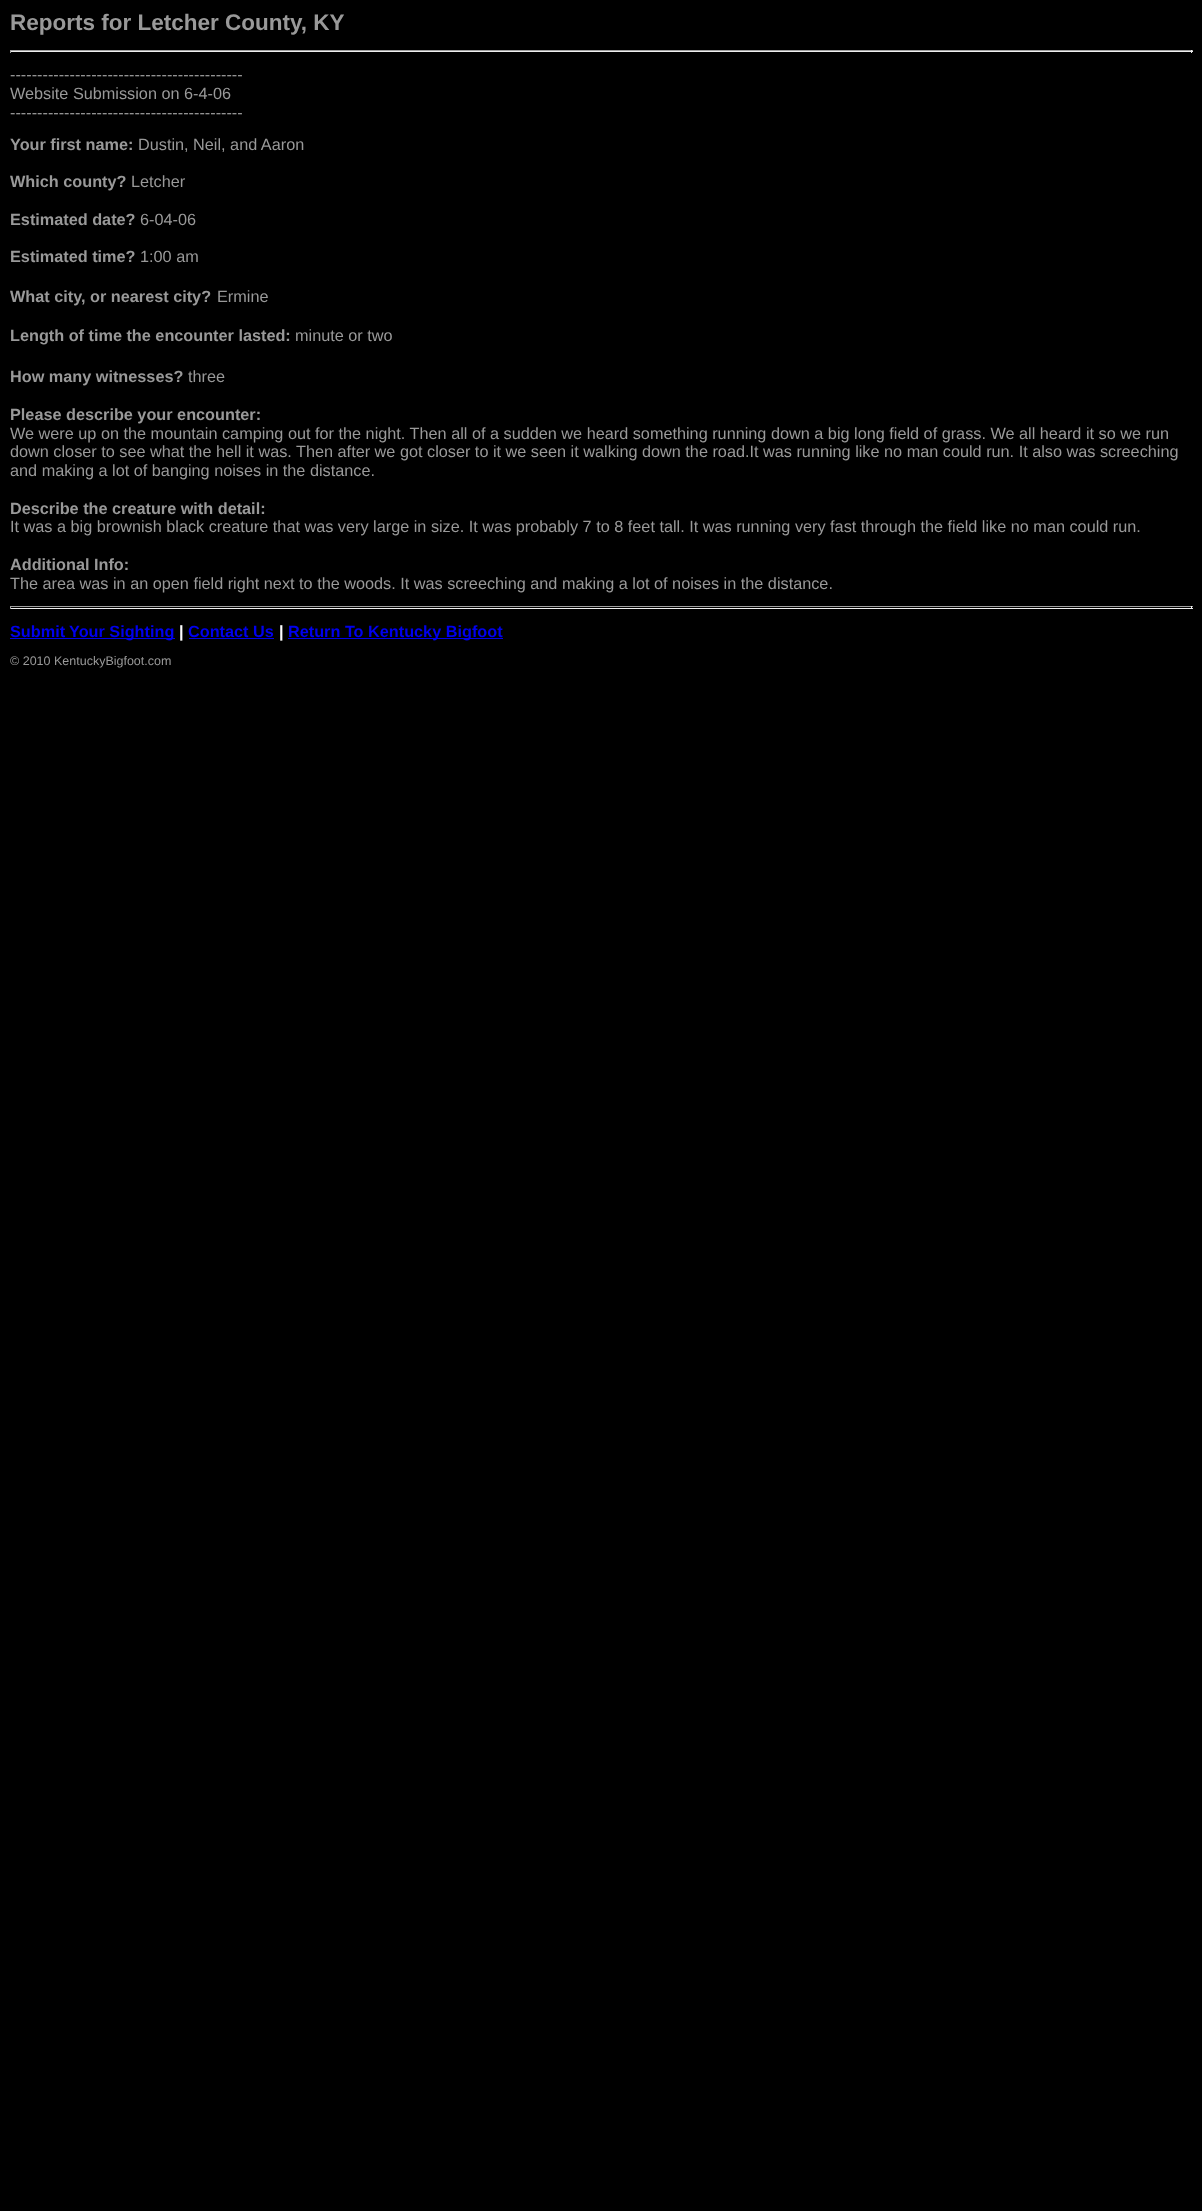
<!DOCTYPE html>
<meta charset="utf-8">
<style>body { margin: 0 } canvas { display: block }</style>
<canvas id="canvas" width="1202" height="2211"></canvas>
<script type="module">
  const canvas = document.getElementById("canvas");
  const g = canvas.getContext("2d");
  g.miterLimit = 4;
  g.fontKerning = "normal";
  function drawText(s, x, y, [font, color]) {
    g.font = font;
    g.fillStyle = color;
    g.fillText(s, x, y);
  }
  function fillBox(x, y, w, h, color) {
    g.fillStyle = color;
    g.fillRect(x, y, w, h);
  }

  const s1 = ["bold 22.5px Liberation Sans", "#999999"];
  const s2 = ["16.25px Liberation Sans", "#999999"];
  const s3 = ["bold 16.25px Liberation Sans", "#999999"];
  const s4 = ["bold 16.25px Liberation Sans", "#0000EE"];
  const s5 = ["bold 16.25px Liberation Sans", "#FFFFFF"];
  const s6 = ["12.5px Liberation Sans", "#999999"];

  fillBox(0, 0, 1202, 2211, "#000000");
  drawText("Reports for Letcher County, KY", 10, 30, s1);
  fillBox(10, 50, 1183, 1, "#9F9F9F");
  fillBox(1191, 50, 1, 3, "#EEEEEE");
  fillBox(10, 51, 1183, 1, "#EEEEEE");
  fillBox(10, 50, 1, 3, "#9F9F9F");
  drawText("-------------------------------------------", 10, 80, s2);
  drawText("Website Submission on 6-4-06", 10, 99, s2);
  drawText("-------------------------------------------", 10, 118, s2);
  drawText("Your first name:", 10, 150, s3);
  drawText("Dustin, Neil, and Aaron", 138, 150, s2);
  drawText("Which county?", 10, 187, s3);
  drawText("Letcher", 131, 187, s2);
  drawText("Estimated date?", 10, 225, s3);
  drawText("6-04-06", 140, 225, s2);
  drawText("Estimated time?", 10, 262, s3);
  drawText("1:00 am", 140, 262, s2);
  drawText("What city, or nearest city?", 10, 302, s3);
  drawText("Ermine", 217, 302, s2);
  drawText("Length of time the encounter lasted:", 10, 341, s3);
  drawText("minute or two", 295, 341, s2);
  drawText("How many witnesses?", 10, 382, s3);
  drawText("three", 188, 382, s2);
  drawText("Please describe your encounter:", 10, 420, s3);
  drawText("We were up on the mountain camping out for the night. Then all of a sudden we heard something running down a big long field of grass. We all heard it so we run", 10, 439, s2);
  drawText("down closer to see what the hell it was. Then after we got closer to it we seen it walking down the road.It was running like no man could run. It also was screeching", 10, 457, s2);
  drawText("and making a lot of banging noises in the distance.", 10, 476, s2);
  drawText("Describe the creature with detail:", 10, 514, s3);
  drawText("It was a big brownish black creature that was very large in size. It was probably 7 to 8 feet tall. It was running very fast through the field like no man could run.", 10, 532, s2);
  drawText("Additional Info:", 10, 570, s3);
  drawText("The area was in an open field right next to the woods. It was screeching and making a lot of noises in the distance.", 10, 589, s2);
  fillBox(10, 606, 1183, 1, "#9F9F9F");
  fillBox(1191, 606, 1, 3, "#EEEEEE");
  fillBox(10, 608, 1183, 1, "#EEEEEE");
  fillBox(10, 606, 1, 3, "#9F9F9F");
  drawText("Submit", 10, 637, s4);
  fillBox(10, 638, 165, 1, "#0000EE");
  drawText("Your Sighting", 69, 637, s4);
  drawText("|", 179, 637, s5);
  drawText("Contact Us", 188, 637, s4);
  fillBox(189, 638, 85, 1, "#0000EE");
  drawText("|", 279, 637, s5);
  fillBox(288, 638, 215, 1, "#0000EE");
  drawText("Return To Kentucky Bigfoot", 288, 637, s4);
  drawText("© 2010 KentuckyBigfoot.com", 10, 665, s6);
</script>
